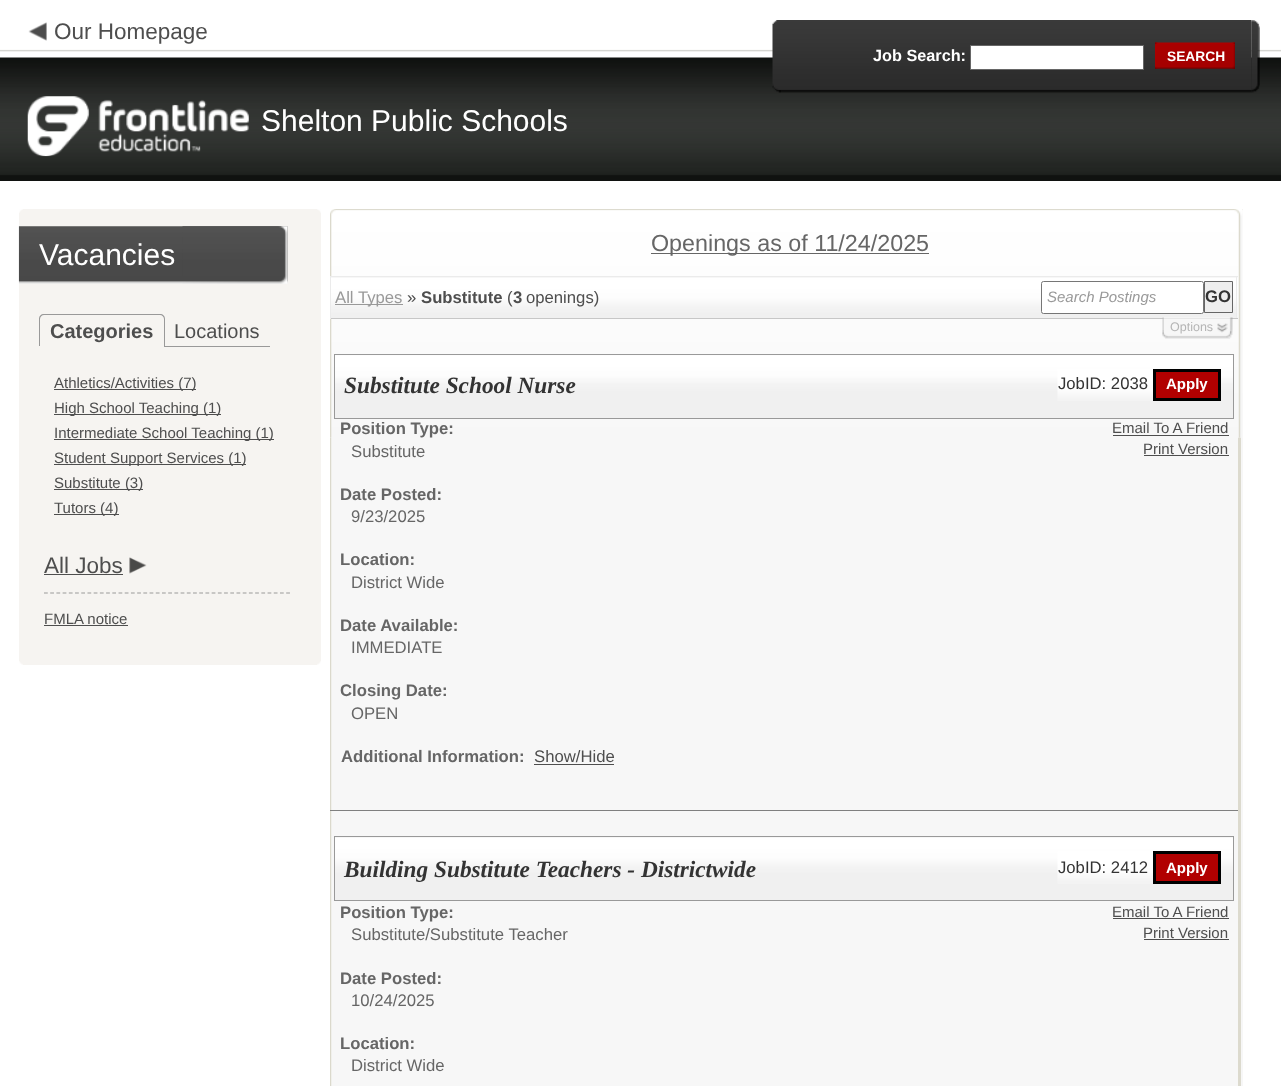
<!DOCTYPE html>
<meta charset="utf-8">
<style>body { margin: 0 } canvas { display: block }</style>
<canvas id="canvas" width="1281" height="1086"></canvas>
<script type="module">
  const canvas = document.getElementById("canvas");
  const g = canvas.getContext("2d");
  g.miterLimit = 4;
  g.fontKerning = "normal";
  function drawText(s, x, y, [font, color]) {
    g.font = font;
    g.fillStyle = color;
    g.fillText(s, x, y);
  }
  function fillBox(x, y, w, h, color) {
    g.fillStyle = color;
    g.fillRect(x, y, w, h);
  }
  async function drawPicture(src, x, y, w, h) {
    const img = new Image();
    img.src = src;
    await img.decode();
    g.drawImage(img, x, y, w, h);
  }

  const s1 = ["22.5px Liberation Sans", "#4E4E4E"];
  const s2 = ["30px Liberation Sans", "#FFFFFF"];
  const s3 = ["bold 16.25px Liberation Sans", "#FFFFFF"];
  const s4 = ["bold 13.75px Liberation Sans", "#FFFFFF"];
  const s5 = ["bold 20px Liberation Sans", "#4E4E4E"];
  const s6 = ["20px Liberation Sans", "#4E4E4E"];
  const s7 = ["15px Liberation Sans", "#4E4E4E"];
  const s8 = ["23.3px Liberation Sans", "#666666"];
  const s9 = ["16.7px Liberation Sans", "#999999"];
  const s10 = ["16.7px Liberation Sans", "#4E4E4E"];
  const s11 = ["bold 16.7px Liberation Sans", "#4E4E4E"];
  const s12 = ["italic 15px Liberation Sans", "#999999"];
  const s13 = ["bold 16.7px Liberation Sans", "#333333"];
  const s14 = ["12.5px Liberation Sans", "#B5B5B5"];
  const s15 = ["italic bold 23.3px Liberation Serif", "#333333"];
  const s16 = ["16.7px Liberation Sans", "#333333"];
  const s17 = ["bold 15px Liberation Sans", "#FFFFFF"];
  const s18 = ["bold 16.7px Liberation Sans", "#666666"];
  const s19 = ["16.7px Liberation Sans", "#666666"];

  fillBox(0, 0, 1281, 1086, "#1E211E");
  await drawPicture("pic1.png", 0, 0, 1281, 181);
  await drawPicture("pic2.png", 28, 22, 19, 19);
  drawText("Our Homepage", 54, 39, s1);
  await drawPicture("pic3.png", 27, 96, 222, 61);
  drawText("Shelton Public Schools", 261, 131, s2);
  await drawPicture("pic4.png", 778, 20, 474, 73);
  await drawPicture("pic5.png", 1251, 20, 9, 73);
  await drawPicture("pic6.png", 772, 20, 9, 73);
  drawText("Job Search:", 873, 61, s3);
  g.beginPath();
  g.rect(970.5, 45.5, 173, 24);
  g.fill();
  g.strokeStyle = "#666666";
  g.stroke();
  await drawPicture("pic7.png", 1155, 42, 80, 27);
  await drawPicture("pic8.png", 1232, 42, 3, 27);
  await drawPicture("pic9.png", 1155, 42, 3, 27);
  drawText("SEARCH", 1167, 61, s4);
  fillBox(0, 181, 1281, 905, "#FFFFFF");
  fillBox(19, 209, 302, 456, "#F6F4F1");
  await drawPicture("pic10.png", 317, 661, 4, 4);
  await drawPicture("pic11.png", 19, 661, 4, 4);
  await drawPicture("pic12.png", 317, 209, 4, 4);
  await drawPicture("pic13.png", 19, 209, 4, 4);
  await drawPicture("pic14.png", 18, 226, 270, 58);
  await drawPicture("pic15.png", 182, 226, 106, 58);
  drawText("Vacancies", 39, 265, s2);
  g.fillStyle = "#999999";
  g.beginPath();
  g.moveTo(44, 314);
  g.lineTo(160, 314);
  g.bezierCurveTo(163, 314, 165, 316, 165, 319);
  g.lineTo(165, 346);
  g.lineTo(39, 346);
  g.lineTo(39, 319);
  g.bezierCurveTo(39, 316, 41, 314, 44, 314);
  g.closePath();
  g.moveTo(44, 315);
  g.lineTo(160, 315);
  g.bezierCurveTo(162, 315, 164, 317, 164, 319);
  g.lineTo(164, 346);
  g.lineTo(40, 346);
  g.lineTo(40, 319);
  g.bezierCurveTo(40, 317, 42, 315, 44, 315);
  g.closePath();
  g.fill("evenodd");
  drawText("Categories", 50, 338, s5);
  drawText("Locations", 174, 338, s6);
  fillBox(164, 346, 106, 1, "#999999");
  fillBox(54, 389, 142, 1, "#4E4E4E");
  drawText("Athletics/Activities (7)", 54, 388, s7);
  fillBox(54, 414, 167, 1, "#4E4E4E");
  drawText("High School Teaching (1)", 54, 413, s7);
  fillBox(54, 439, 220, 1, "#4E4E4E");
  drawText("Intermediate School Teaching (1)", 54, 438, s7);
  fillBox(54, 464, 192, 1, "#4E4E4E");
  drawText("Student Support Services (1)", 54, 463, s7);
  fillBox(54, 489, 89, 1, "#4E4E4E");
  drawText("Substitute (3)", 54, 488, s7);
  fillBox(54, 514, 65, 1, "#4E4E4E");
  drawText("Tutors (4)", 54, 513, s7);
  drawText("All Jobs", 44, 573, s1);
  fillBox(44, 574, 79, 1, "#4E4E4E");
  await drawPicture("pic16.png", 129, 557, 18, 17);
  g.beginPath();
  g.moveTo(44, 593);
  g.lineTo(290, 593);
  g.strokeStyle = "#999999";
  g.lineWidth = 1.2;
  g.setLineDash([3.75, 2.46]);
  g.stroke();
  drawText("FMLA notice", 44, 624, s7);
  fillBox(44, 625, 84, 1, "#4E4E4E");
  fillBox(331, 209, 912, 877, "#F7F7F7");
  fillBox(1238, 437, 3, 649, "#DCDACE");
  await drawPicture("pic17.png", 330, 437, 2, 649);
  await drawPicture("pic18.png", 330, 209, 913, 229);
  await drawPicture("pic19.png", 1234, 209, 9, 229);
  await drawPicture("pic20.png", 330, 209, 6, 229);
  fillBox(651, 253, 278, 1, "#666666");
  drawText("Openings as of 11/24/2025", 651, 251, s8);
  await drawPicture("pic21.png", 331, 277, 907, 41);
  fillBox(330, 276, 908, 1, "#EBEBEB");
  fillBox(1236, 276, 1, 43, "#EBEBEB");
  fillBox(330, 318, 908, 1, "#C7C7C7");
  fillBox(330, 276, 1, 43, "#EBEBEB");
  fillBox(335, 304, 68, 1, "#999999");
  drawText("All Types", 335, 303, s9);
  drawText("»", 407, 303, s10);
  drawText("Substitute", 421, 303, s11);
  drawText("(", 507, 303, s10);
  drawText("3", 513, 303, s11);
  drawText("openings)", 526, 303, s10);
  g.fillStyle = "#FFFFFF";
  g.beginPath();
  g.roundRect(1041.5, 281.5, 162, 32, 2);
  g.fill();
  g.strokeStyle = "#767676";
  g.lineWidth = 1;
  g.setLineDash([]);
  g.stroke();
  drawText("Search Postings", 1047, 302, s12);
  g.fillStyle = "#EEEEEE";
  g.beginPath();
  g.rect(1204.5, 281.5, 28, 31);
  g.fill();
  g.strokeStyle = "#666666";
  g.stroke();
  drawText("GO", 1205, 302, s13);
  await drawPicture("pic22.png", 1162, 317, 71, 22);
  drawText("Options", 1170, 331, s14);
  await drawPicture("pic23.png", 335, 355, 898, 63);
  g.strokeStyle = "#999999";
  g.strokeRect(334.5, 354.5, 899, 64);
  drawText("Substitute School Nurse", 344, 393, s15);
  await drawPicture("pic24.png", 1057, 369, 96, 32);
  drawText("JobID: 2038", 1058, 389, s16);
  g.fillStyle = "#B10000";
  g.beginPath();
  g.rect(1154.5, 370.5, 65, 29);
  g.fill();
  g.strokeStyle = "#000000";
  g.lineWidth = 3;
  g.stroke();
  drawText("Apply", 1166, 389, s17);
  drawText("Position Type:", 340, 434, s18);
  drawText("Substitute", 351, 457, s19);
  drawText("Email To A Friend", 1112, 433, s7);
  fillBox(1113, 435, 116, 1, "#4E4E4E");
  drawText("Print Version", 1143, 454, s7);
  fillBox(1144, 455, 85, 1, "#4E4E4E");
  drawText("Date Posted:", 340, 500, s18);
  drawText("9/23/2025", 351, 522, s19);
  drawText("Location:", 340, 565, s18);
  drawText("District Wide", 351, 588, s19);
  drawText("Date Available:", 340, 631, s18);
  drawText("IMMEDIATE", 351, 653, s19);
  drawText("Closing Date:", 340, 696, s18);
  drawText("OPEN", 351, 719, s19);
  drawText("Additional Information:", 341, 762, s18);
  drawText("Show/Hide", 534, 762, s10);
  fillBox(534, 764, 80, 1, "#4E4E4E");
  fillBox(330, 810, 908, 1, "#808080");
  await drawPicture("pic25.png", 335, 837, 898, 63);
  g.strokeStyle = "#999999";
  g.lineWidth = 1;
  g.strokeRect(334.5, 836.5, 899, 64);
  drawText("Building Substitute Teachers - Districtwide", 344, 877, s15);
  await drawPicture("pic26.png", 1057, 851, 96, 33);
  drawText("JobID: 2412", 1058, 873, s16);
  g.fillStyle = "#B10000";
  g.beginPath();
  g.rect(1154.5, 852.5, 65, 30);
  g.fill();
  g.strokeStyle = "#000000";
  g.lineWidth = 3;
  g.stroke();
  drawText("Apply", 1166, 873, s17);
  drawText("Position Type:", 340, 918, s18);
  drawText("Substitute/Substitute Teacher", 351, 940, s19);
  drawText("Email To A Friend", 1112, 917, s7);
  fillBox(1113, 918, 116, 1, "#4E4E4E");
  drawText("Print Version", 1143, 938, s7);
  fillBox(1144, 939, 85, 1, "#4E4E4E");
  drawText("Date Posted:", 340, 984, s18);
  drawText("10/24/2025", 351, 1006, s19);
  drawText("Location:", 340, 1049, s18);
  drawText("District Wide", 351, 1071, s19);
</script>
